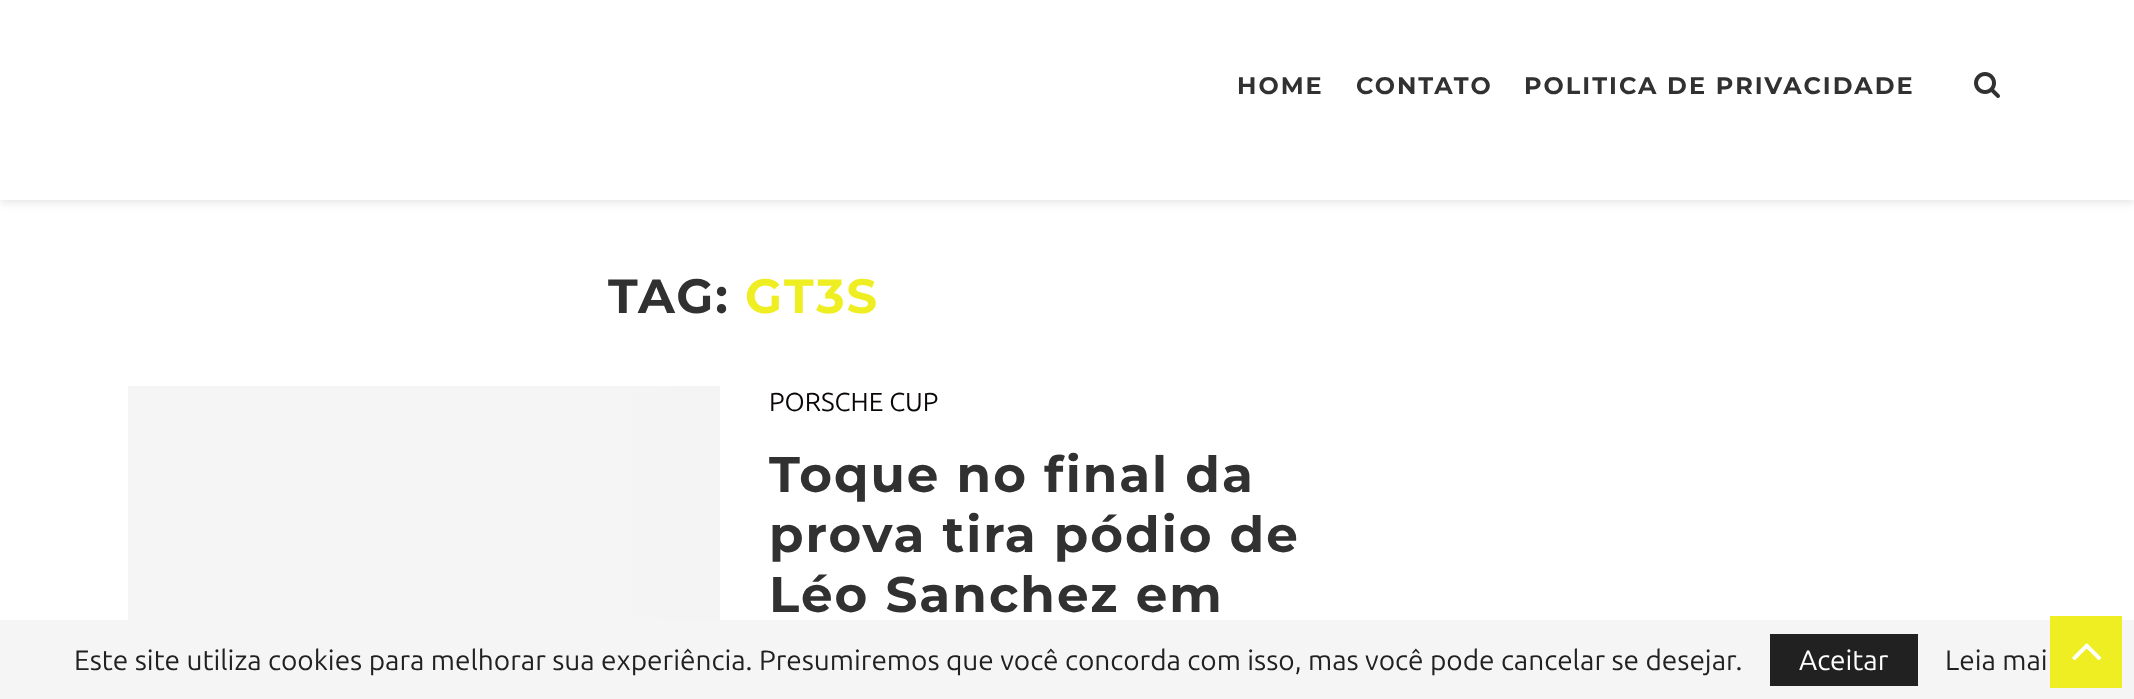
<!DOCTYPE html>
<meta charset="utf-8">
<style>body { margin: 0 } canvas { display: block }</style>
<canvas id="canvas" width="2134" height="699"></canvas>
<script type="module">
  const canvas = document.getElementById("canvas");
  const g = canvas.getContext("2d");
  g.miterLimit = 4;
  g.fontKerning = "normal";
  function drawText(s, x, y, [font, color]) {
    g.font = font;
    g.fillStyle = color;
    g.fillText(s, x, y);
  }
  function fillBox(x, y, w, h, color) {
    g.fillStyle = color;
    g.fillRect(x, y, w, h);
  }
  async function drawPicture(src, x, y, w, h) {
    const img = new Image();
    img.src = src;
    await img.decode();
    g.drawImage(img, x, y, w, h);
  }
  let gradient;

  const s1 = ["bold 24px Montserrat", "#313131"];
  const s2 = ["bold 48px Montserrat", "#313131"];
  const s3 = ["bold 48px Montserrat", "#EEEE22"];
  const s4 = ["26px Ubuntu", "#0A0606"];
  const s5 = ["bold 50px Montserrat", "#313131"];
  const s6 = ["28px Ubuntu", "#212121"];
  const s7 = ["28px Ubuntu", "#FFFFFF"];

  fillBox(0, 0, 2134, 699, "#FFFFFF");
  g.fillStyle = "rgba(190, 190, 190, 0.46)";
  g.filter = "blur(5px)";
  g.beginPath();
  g.rect(0, 2, 2134, 200);
  g.fill();
  g.filter = "none";
  fillBox(0, 0, 2134, 200, "#FFFFFF");
  g.letterSpacing = "2px";
  drawText("HOME", 1237, 94, s1);
  drawText("CONTATO", 1356, 94, s1);
  drawText("POLITICA DE PRIVACIDADE", 1524, 94, s1);
  await drawPicture("pic1.png", 1974, 72, 26, 26);
  drawText("TAG:", 608, 313, s2);
  drawText("GT3S", 745, 313, s3);
  gradient = g.createLinearGradient(1324, 584, -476, 584);
  gradient.addColorStop(0, "#F5F5F5");
  gradient.addColorStop(0.15, "#EFEFEF");
  gradient.addColorStop(0.4, "#F5F5F5");
  gradient.addColorStop(1, "#F5F5F5");
  g.fillStyle = gradient;
  g.fillRect(128, 386, 592, 234);
  g.letterSpacing = "0px";
  drawText("PORSCHE CUP", 769, 411, s4);
  g.letterSpacing = "2px";
  drawText("Toque no final da", 769, 492, s5);
  drawText("prova tira pódio de", 769, 552, s5);
  drawText("Léo Sanchez em", 769, 612, s5);
  fillBox(0, 620, 2134, 79, "#F5F5F5");
  fillBox(2050, 616, 72, 72, "#EEEE22");
  await drawPicture("pic2.png", 2072, 643, 30, 18);
  g.letterSpacing = "0px";
  drawText("Este site utiliza cookies para melhorar sua experiência. Presumiremos que você concorda com isso, mas você pode cancelar se desejar.", 74, 670, s6);
  fillBox(1770, 634, 148, 52, "#212121");
  drawText("Aceitar", 1799, 670, s7);
  drawText("Leia mai", 1945, 670, s6);
</script>
